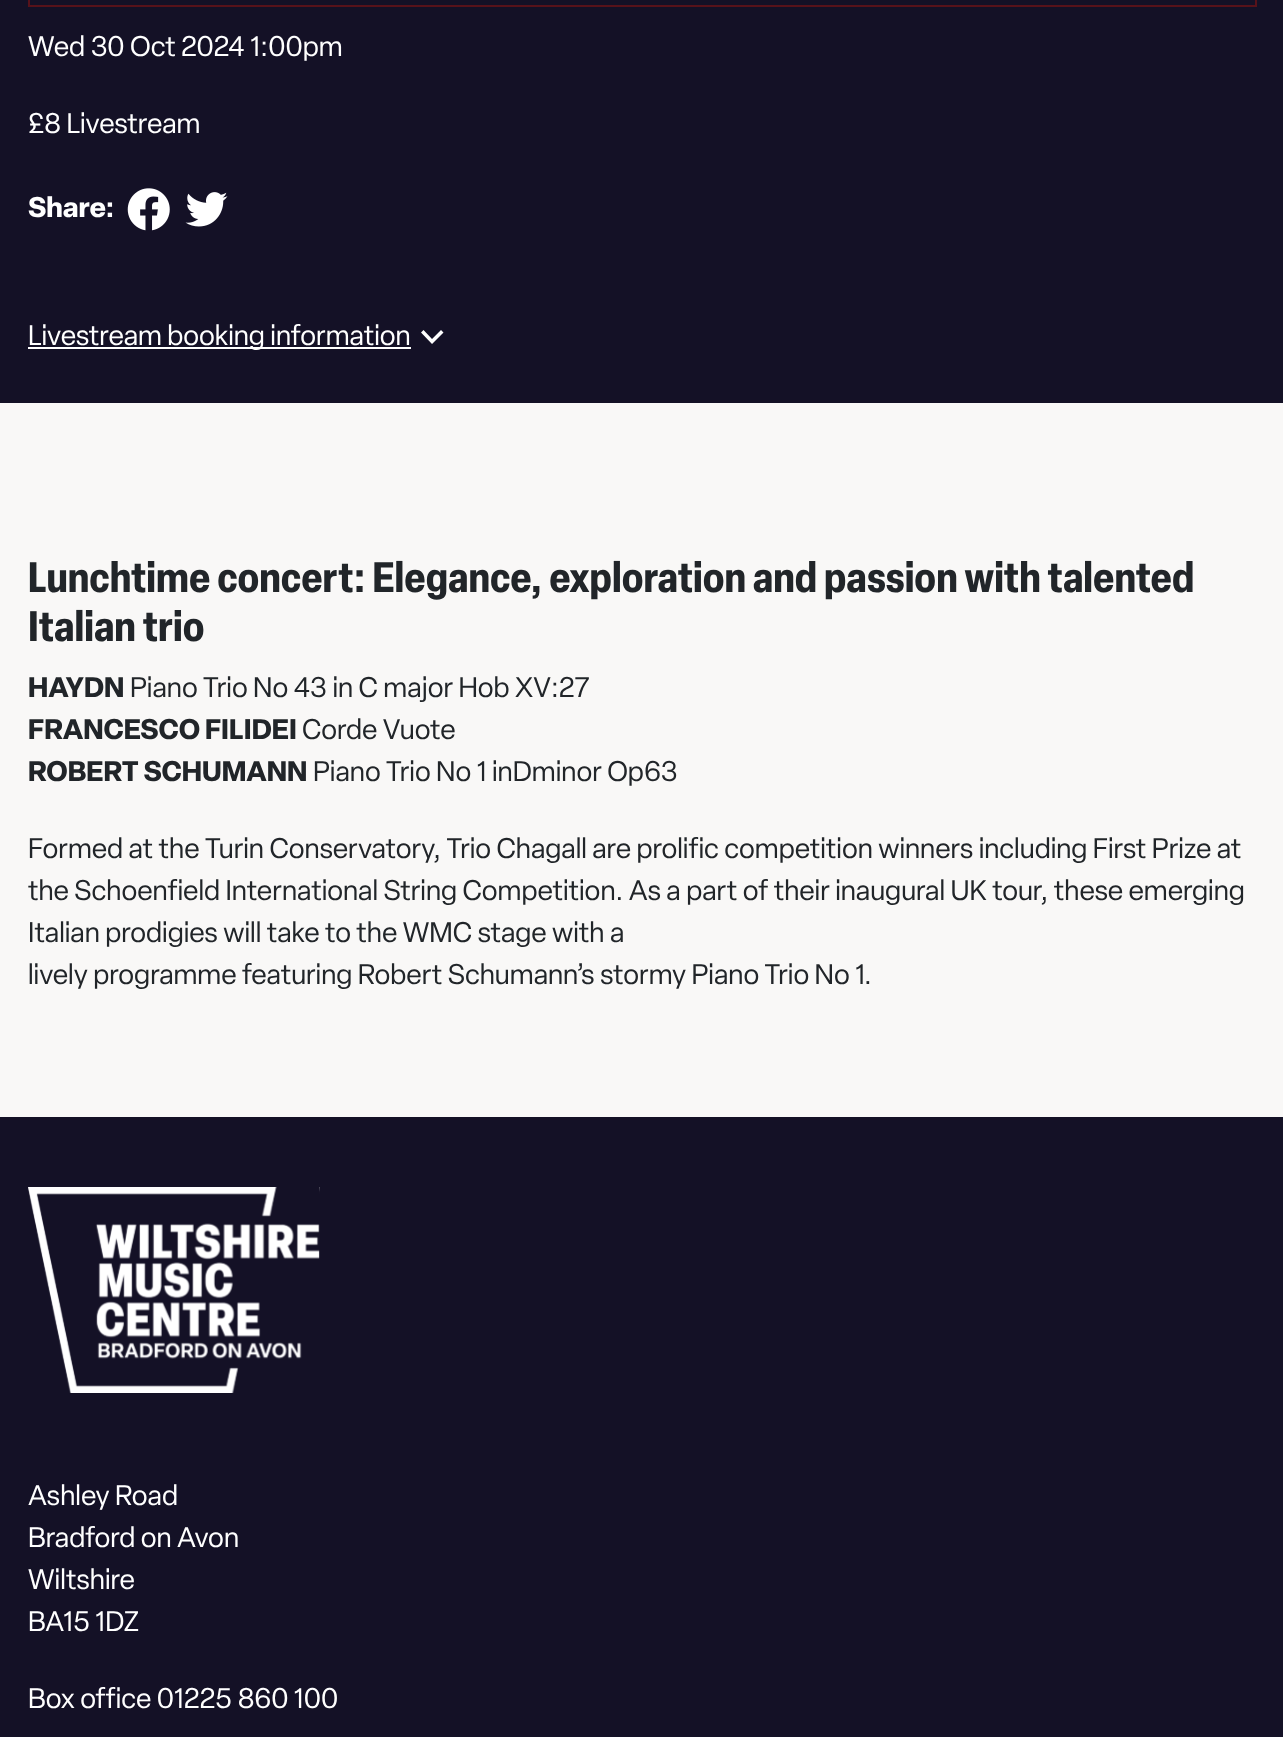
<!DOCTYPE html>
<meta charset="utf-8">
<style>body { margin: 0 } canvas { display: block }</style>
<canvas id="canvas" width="1283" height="1737"></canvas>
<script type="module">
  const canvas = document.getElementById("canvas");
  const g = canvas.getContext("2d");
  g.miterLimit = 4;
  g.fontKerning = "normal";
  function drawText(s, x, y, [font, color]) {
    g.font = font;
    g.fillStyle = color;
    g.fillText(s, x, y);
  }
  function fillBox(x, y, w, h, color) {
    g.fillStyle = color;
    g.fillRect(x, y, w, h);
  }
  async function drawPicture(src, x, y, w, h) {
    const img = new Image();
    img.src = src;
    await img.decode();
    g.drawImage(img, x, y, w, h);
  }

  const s1 = ["28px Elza", "#FFFFFF"];
  const s2 = ["bold 28px Elza", "#FFFFFF"];
  const s3 = ["bold 42px 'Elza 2'", "#212529"];
  const s4 = ["bold 28px Elza", "#212529"];
  const s5 = ["28px Elza", "#212529"];

  fillBox(0, 0, 1283, 1737, "#F9F8F7");
  fillBox(0, 0, 1283, 403, "#141126");
  g.strokeStyle = "#57121A";
  g.lineWidth = 2;
  g.strokeRect(29, -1, 1227, 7);
  drawText("Wed 30 Oct 2024 1:00pm", 28, 56, s1);
  drawText("£8 Livestream", 28, 133, s1);
  drawText("Share:", 28, 217, s2);
  await drawPicture("pic1.png", 127, 188, 43, 43);
  await drawPicture("pic2.png", 185, 192, 43, 35);
  fillBox(28, 347, 383, 2, "#FFFFFF");
  drawText("Livestream booking information", 28, 345, s1);
  g.beginPath();
  g.moveTo(432, 339);
  g.lineTo(441, 330);
  g.lineTo(443.5, 332.5);
  g.lineTo(432, 344);
  g.lineTo(421, 332.5);
  g.lineTo(423.5, 330);
  g.closePath();
  g.fill();
  drawText("Lunchtime concert: Elegance, exploration and passion with talented", 28, 592, s3);
  drawText("Italian trio", 28, 641, s3);
  drawText("HAYDN", 28, 697, s4);
  drawText("Piano Trio No 43 in C major Hob XV:27", 130, 697, s5);
  drawText("FRANCESCO FILIDEI", 28, 739, s4);
  drawText("Corde Vuote", 302, 739, s5);
  drawText("ROBERT SCHUMANN", 28, 781, s4);
  drawText("Piano Trio No 1 inDminor Op63", 313, 781, s5);
  drawText("Formed at the Turin Conservatory, Trio Chagall are prolific competition winners including First Prize at", 28, 858, s5);
  drawText("the Schoenfield International String Competition. As a part of their inaugural UK tour, these emerging", 28, 900, s5);
  drawText("Italian prodigies will take to the WMC stage with a", 28, 942, s5);
  drawText("lively programme featuring Robert Schumann’s stormy Piano Trio No 1.", 28, 984, s5);
  fillBox(0, 1117, 1283, 620, "#141126");
  await drawPicture("pic3.png", 28, 1187, 292, 206);
  drawText("Ashley Road", 28, 1505, s1);
  drawText("Bradford on Avon", 28, 1547, s1);
  drawText("Wiltshire", 28, 1589, s1);
  drawText("BA15 1DZ", 28, 1631, s1);
  drawText("Box office 01225 860 100", 28, 1708, s1);
</script>
